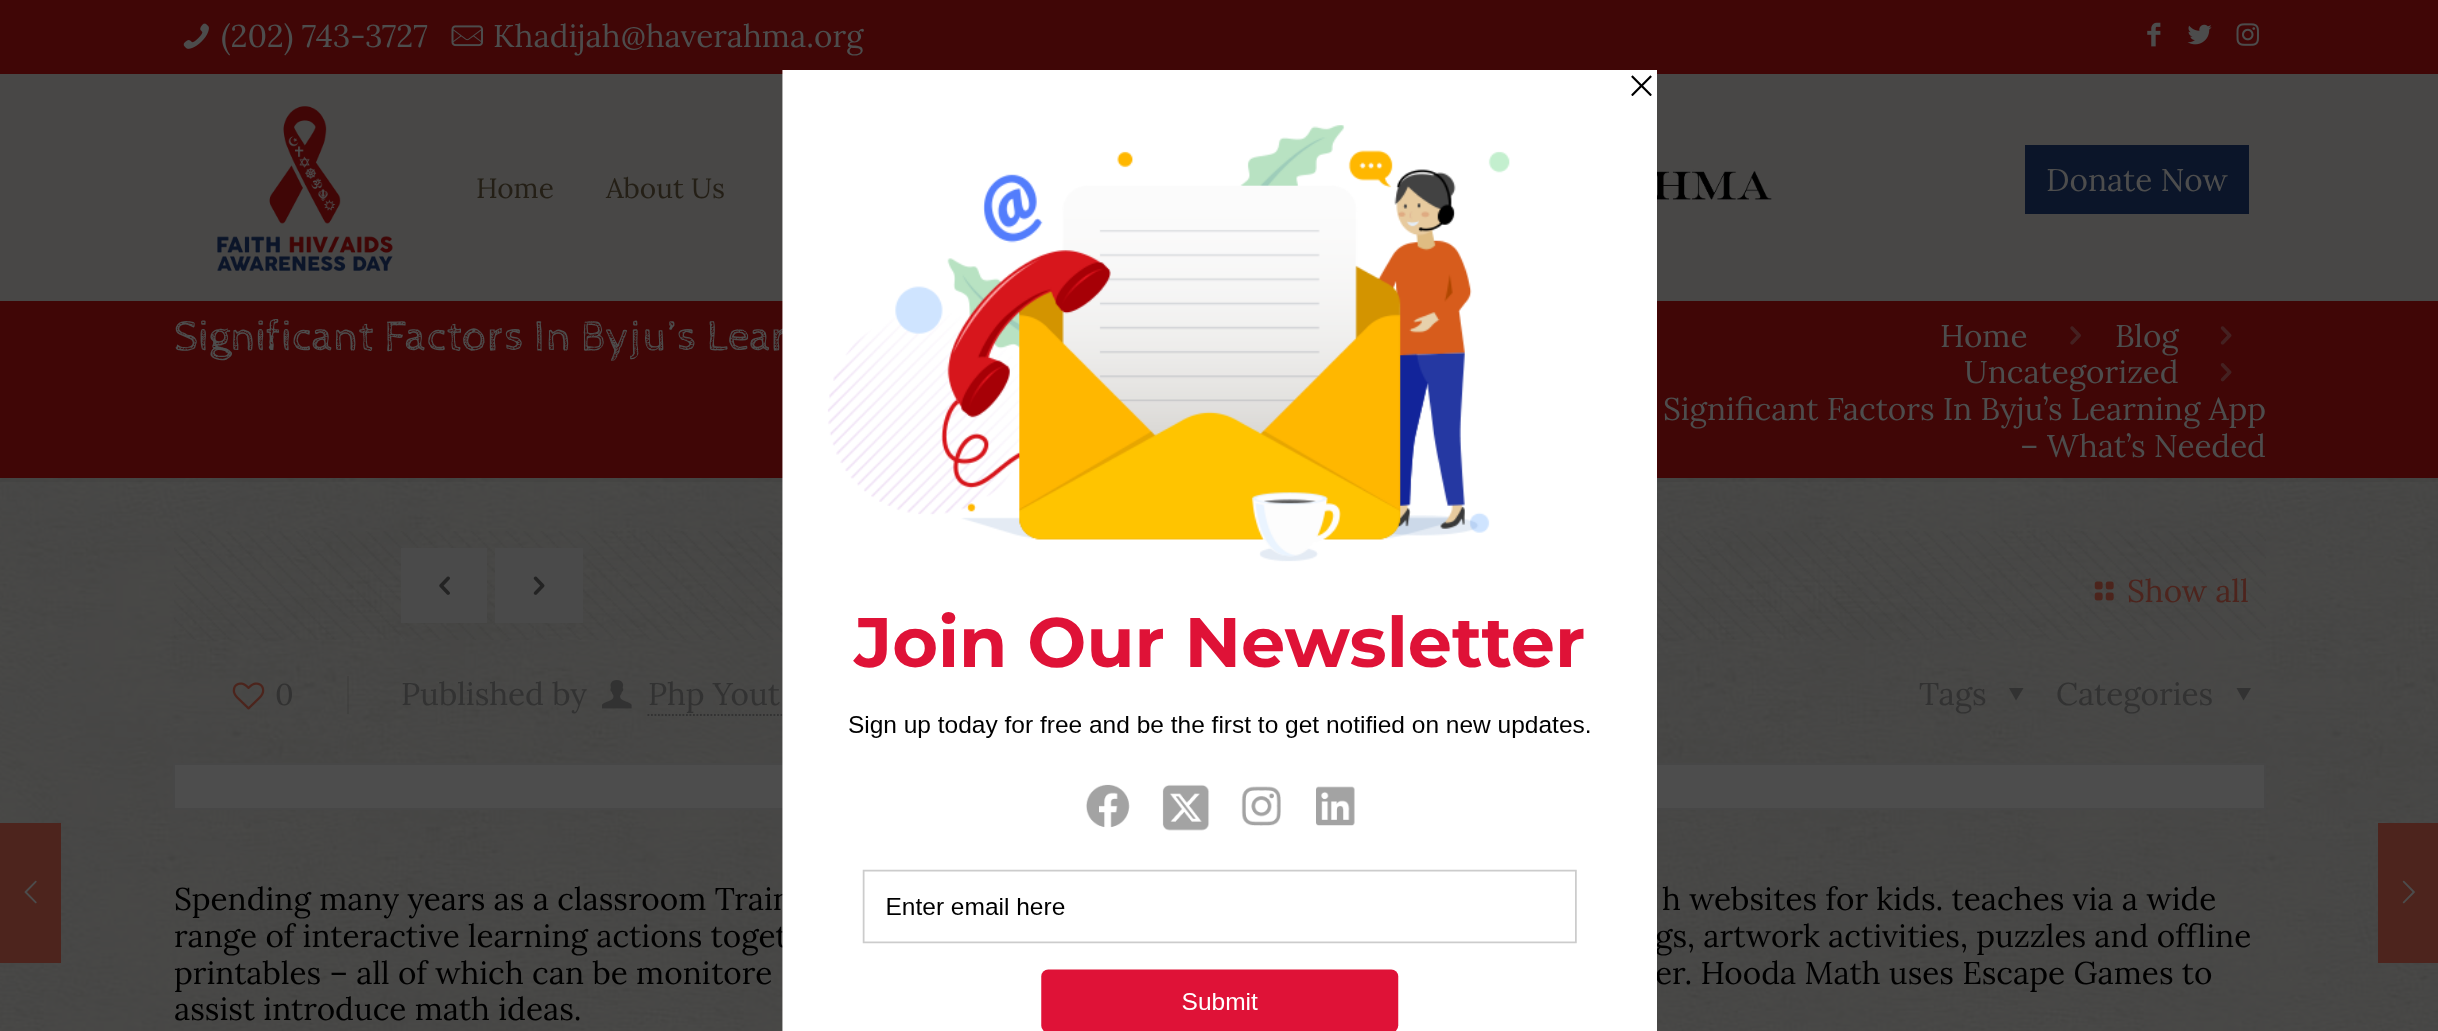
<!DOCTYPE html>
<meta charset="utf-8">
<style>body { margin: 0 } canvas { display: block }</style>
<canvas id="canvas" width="2438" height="1031"></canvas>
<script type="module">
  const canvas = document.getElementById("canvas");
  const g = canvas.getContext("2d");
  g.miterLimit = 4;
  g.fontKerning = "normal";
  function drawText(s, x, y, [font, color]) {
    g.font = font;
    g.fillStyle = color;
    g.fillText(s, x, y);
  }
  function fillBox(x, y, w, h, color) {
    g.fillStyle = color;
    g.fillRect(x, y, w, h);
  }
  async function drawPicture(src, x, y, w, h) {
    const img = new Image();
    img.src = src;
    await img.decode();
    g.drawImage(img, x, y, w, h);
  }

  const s1 = ["31.5px Lora", "#4D4D4D"];
  const s2 = ["28px Lora", "#241F16"];
  const s3 = ["43.75px Cabin Sketch", "#4D4D4D"];
  const s4 = ["31.5px Lora", "#4D241D"];
  const s5 = ["30px Lora", "#323232"];
  const s6 = ["31.5px Lora", "#323232"];
  const s7 = ["31.5px Lora", "#000000"];

  fillBox(0, 0, 2438, 1031, "#FFFFFF");
  await drawPicture("pic1.png", 0, 478, 2438, 553);
  fillBox(0, 0, 2438, 74, "#400606");
  await drawPicture("pic2.png", 183, 23, 26, 26);
  drawText("(202) 743-3727", 221, 47, s1);
  await drawPicture("pic3.png", 451, 25, 32, 22);
  drawText("Khadijah@haverahma.org", 493, 47, s1);
  await drawPicture("pic4.png", 2147, 22, 14, 25);
  await drawPicture("pic5.png", 2187, 24, 25, 21);
  await drawPicture("pic6.png", 2236, 23, 23, 23);
  fillBox(0, 74, 2438, 227, "#484746");
  await drawPicture("pic7.png", 217, 106, 176, 165);
  drawText("Home", 476, 198, s2);
  drawText("About Us", 606, 198, s2);
  await drawPicture("pic8.png", 1657, 169, 115, 35);
  fillBox(2025, 145, 224, 69, "#0B1529");
  drawText("Donate Now", 2046, 191, s1);
  fillBox(0, 301, 2438, 177, "#400606");
  drawText("Significant Factors In Byju’s Lear", 174, 350, s3);
  drawText("Home", 1940, 347, s1);
  await drawPicture("pic9.png", 2070, 326, 11, 19);
  drawText("Blog", 2115, 347, s1);
  await drawPicture("pic10.png", 2220, 326, 12, 19);
  drawText("Uncategorized", 1964, 383, s1);
  await drawPicture("pic11.png", 2220, 363, 12, 19);
  drawText("Significant Factors In Byju’s Learning App", 1663, 420, s1);
  drawText("– What’s Needed", 2020, 457, s1);
  fillBox(0, 478, 2438, 4, "rgba(0, 0, 0, 0.04)");
  await drawPicture("pic12.png", 174, 531, 2092, 109);
  fillBox(401, 548, 86, 75, "#4A4A4A");
  await drawPicture("pic13.png", 439, 576, 11, 19);
  fillBox(495, 548, 88, 75, "#4A4A4A");
  await drawPicture("pic14.png", 533, 576, 12, 19);
  await drawPicture("pic15.png", 2094, 581, 20, 20);
  drawText("Show all", 2127, 602, s4);
  await drawPicture("pic16.png", 232, 682, 33, 28);
  drawText("0", 275, 705, s5);
  fillBox(347, 676, 2, 38, "rgba(0, 0, 0, 0.08)");
  drawText("Published by", 401, 705, s6);
  await drawPicture("pic17.png", 602, 680, 30, 29);
  drawText("Php Yout", 648, 705, s6);
  g.beginPath();
  g.moveTo(647.5, 715);
  g.lineTo(798, 715);
  g.strokeStyle = "#323232";
  g.lineWidth = 1.8;
  g.setLineDash([1.75, 1.75]);
  g.stroke();
  drawText("Tags", 1919, 705, s6);
  g.beginPath();
  g.moveTo(2023.5, 688);
  g.lineTo(2016, 700.5);
  g.lineTo(2009, 688);
  g.closePath();
  g.fill();
  drawText("Categories", 2056, 705, s6);
  g.beginPath();
  g.moveTo(2251, 688);
  g.lineTo(2243.5, 700.5);
  g.lineTo(2236.5, 688);
  g.closePath();
  g.fill();
  g.fillStyle = "#4D4D4D";
  g.beginPath();
  g.rect(174, 764, 2091, 45);
  g.fill();
  g.strokeStyle = "#474747";
  g.lineWidth = 2;
  g.setLineDash([]);
  g.stroke();
  drawText("Spending many years as a classroom Train", 174, 910, s7);
  drawText("h websites for kids. teaches via a wide", 1662, 910, s7);
  drawText("range of interactive learning actions toget", 174, 947, s7);
  drawText("gs, artwork activities, puzzles and offline", 1655, 947, s7);
  drawText("printables – all of which can be monitore", 174, 984, s7);
  drawText("er. Hooda Math uses Escape Games to", 1655, 984, s7);
  drawText("assist introduce math ideas.", 174, 1020, s7);
  fillBox(0, 823, 61, 140, "#4D241D");
  await drawPicture("pic18.png", 24, 880, 13, 24);
  await drawPicture("pic19.png", 782, 70, 875, 961);
  fillBox(2378, 823, 60, 140, "#4D241D");
  await drawPicture("pic20.png", 2402, 880, 13, 24);
</script>
